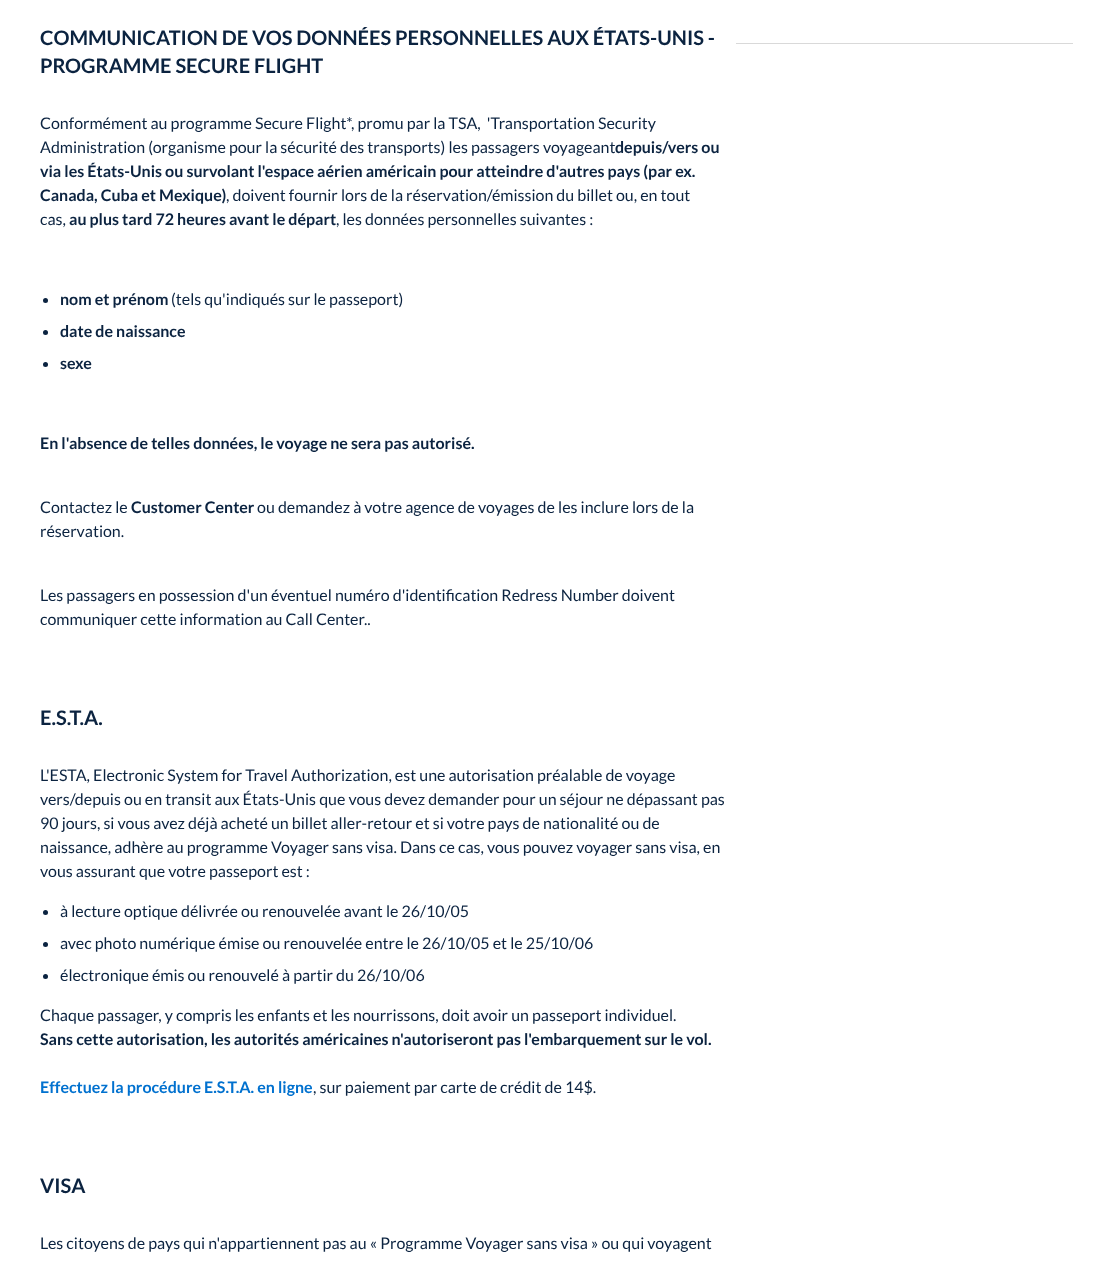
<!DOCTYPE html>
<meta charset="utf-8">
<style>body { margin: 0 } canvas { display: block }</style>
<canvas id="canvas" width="1113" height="1268"></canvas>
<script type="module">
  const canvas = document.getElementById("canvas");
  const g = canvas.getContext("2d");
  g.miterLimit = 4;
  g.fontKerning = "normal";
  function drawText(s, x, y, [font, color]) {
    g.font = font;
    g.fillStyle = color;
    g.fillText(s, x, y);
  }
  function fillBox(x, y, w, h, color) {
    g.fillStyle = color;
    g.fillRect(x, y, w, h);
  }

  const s1 = ["bold 20px Lato", "#0B2340"];
  const s2 = ["16px Lato", "#0B2340"];
  const s3 = ["bold 16px Lato", "#0B2340"];
  const s4 = ["bold 16px Lato", "#0171CF"];

  fillBox(0, 0, 1113, 1268, "#FFFFFF");
  drawText("COMMUNICATION DE VOS DONNÉES PERSONNELLES AUX ÉTATS-UNIS -", 40, 45, s1);
  drawText("PROGRAMME SECURE FLIGHT", 40, 73, s1);
  drawText("Conformément au programme Secure Flight*, promu par la TSA,  'Transportation Security", 40, 129, s2);
  drawText("Administration (organisme pour la sécurité des transports) les passagers voyageant", 40, 153, s2);
  drawText("depuis/vers ou", 615, 153, s3);
  drawText("via les États-Unis ou survolant l'espace aérien américain pour atteindre d'autres pays (par ex.", 40, 177, s3);
  drawText("Canada, Cuba et Mexique)", 40, 201, s3);
  drawText(", doivent fournir lors de la réservation/émission du billet ou, en tout", 226, 201, s2);
  drawText("cas,", 40, 225, s2);
  drawText("au plus tard 72 heures avant le départ", 69, 225, s3);
  drawText(", les données personnelles suivantes :", 336, 225, s2);
  g.beginPath();
  g.arc(45.5, 300.5, 2.5, 0, Math.PI * 2);
  g.fill();
  drawText("nom et prénom", 60, 305, s3);
  drawText("(tels qu'indiqués sur le passeport)", 171, 305, s2);
  g.beginPath();
  g.arc(45.5, 332.5, 2.5, 0, Math.PI * 2);
  g.fill();
  drawText("date de naissance", 60, 337, s3);
  g.beginPath();
  g.arc(45.5, 364.5, 2.5, 0, Math.PI * 2);
  g.fill();
  drawText("sexe", 60, 369, s3);
  drawText("En l'absence de telles données, le voyage ne sera pas autorisé.", 40, 449, s3);
  drawText("Contactez le", 40, 513, s2);
  drawText("Customer Center", 131, 513, s3);
  drawText("ou demandez à votre agence de voyages de les inclure lors de la", 257, 513, s2);
  drawText("réservation.", 40, 537, s2);
  drawText("Les passagers en possession d'un éventuel numéro d'identification Redress Number doivent", 40, 601, s2);
  drawText("communiquer cette information au Call Center..", 40, 625, s2);
  drawText("E.S.T.A.", 40, 725, s1);
  drawText("L'ESTA, Electronic System for Travel Authorization, est une autorisation préalable de voyage", 40, 781, s2);
  drawText("vers/depuis ou en transit aux États-Unis que vous devez demander pour un séjour ne dépassant pas", 40, 805, s2);
  drawText("90 jours, si vous avez déjà acheté un billet aller-retour et si votre pays de nationalité ou de", 40, 829, s2);
  drawText("naissance, adhère au programme Voyager sans visa. Dans ce cas, vous pouvez voyager sans visa, en", 40, 853, s2);
  drawText("vous assurant que votre passeport est :", 40, 877, s2);
  g.beginPath();
  g.arc(45.5, 912.5, 2.5, 0, Math.PI * 2);
  g.fill();
  drawText("à lecture optique délivrée ou renouvelée avant le 26/10/05", 60, 917, s2);
  g.beginPath();
  g.arc(45.5, 944.5, 2.5, 0, Math.PI * 2);
  g.fill();
  drawText("avec photo numérique émise ou renouvelée entre le 26/10/05 et le 25/10/06", 60, 949, s2);
  g.beginPath();
  g.arc(45.5, 976.5, 2.5, 0, Math.PI * 2);
  g.fill();
  drawText("électronique émis ou renouvelé à partir du 26/10/06", 60, 981, s2);
  drawText("Chaque passager, y compris les enfants et les nourrissons, doit avoir un passeport individuel.", 40, 1021, s2);
  drawText("Sans cette autorisation, les autorités américaines n'autoriseront pas l'embarquement sur le vol.", 40, 1045, s3);
  drawText("Effectuez la procédure E.S.T.A. en ligne", 40, 1093, s4);
  drawText(", sur paiement par carte de crédit de 14$.", 313, 1093, s2);
  drawText("VISA", 40, 1193, s1);
  drawText("Les citoyens de pays qui n'appartiennent pas au « Programme Voyager sans visa » ou qui voyagent", 40, 1249, s2);
  fillBox(736, 43, 337, 1, "#D9D9D9");
</script>
